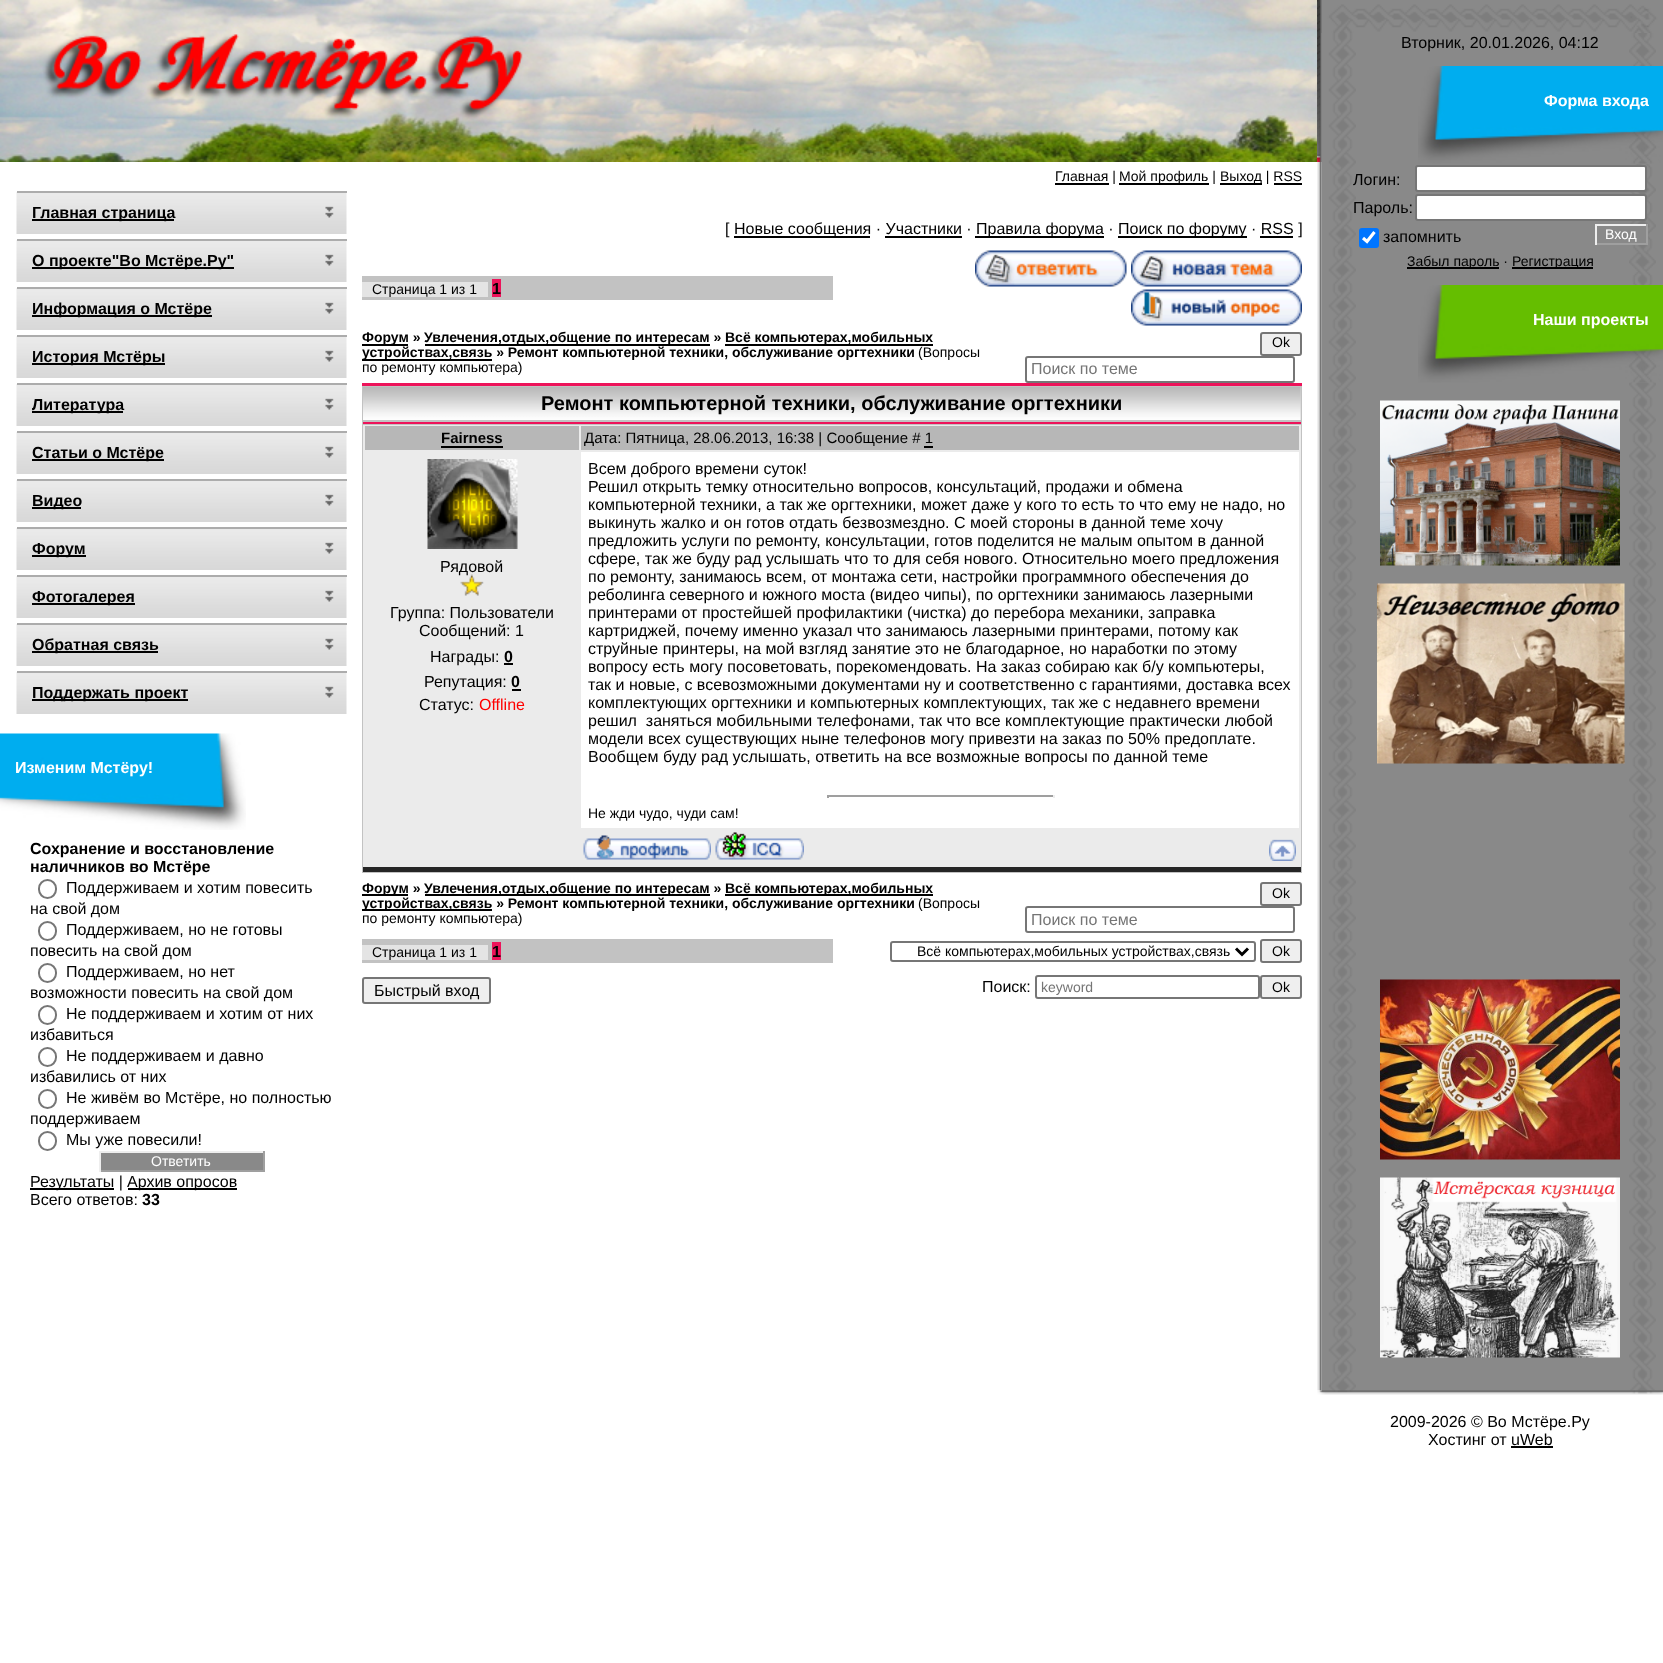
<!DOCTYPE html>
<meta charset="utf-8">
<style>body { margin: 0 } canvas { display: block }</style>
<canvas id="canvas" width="1663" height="1663"></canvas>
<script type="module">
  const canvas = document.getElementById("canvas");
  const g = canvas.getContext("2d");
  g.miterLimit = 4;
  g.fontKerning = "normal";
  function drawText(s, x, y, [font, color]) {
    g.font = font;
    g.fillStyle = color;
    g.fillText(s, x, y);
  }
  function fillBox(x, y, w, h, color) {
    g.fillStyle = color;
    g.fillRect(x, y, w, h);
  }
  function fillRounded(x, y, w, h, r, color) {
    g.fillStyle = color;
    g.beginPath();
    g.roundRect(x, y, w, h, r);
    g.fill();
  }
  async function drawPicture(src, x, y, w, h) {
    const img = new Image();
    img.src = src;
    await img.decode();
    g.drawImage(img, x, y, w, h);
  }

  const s1 = ["14px Liberation Sans", "#000000"];
  const s2 = ["bold 16px Liberation Sans", "#000000"];
  const s3 = ["bold 16px Liberation Sans", "#FFFFFF"];
  const s4 = ["16px Liberation Sans", "#000000"];
  const s5 = ["14px Liberation Sans", "#FFFFFF"];
  const s6 = ["bold 14px Liberation Sans", "#000000"];
  const s7 = ["16px Liberation Sans", "#757575"];
  const s8 = ["bold 20px Liberation Sans", "#000000"];
  const s9 = ["bold 15px Liberation Sans", "#000000"];
  const s10 = ["15px Liberation Sans", "#000000"];
  const s11 = ["16px Liberation Sans", "#FF0000"];
  const s12 = ["14px Liberation Sans", "#757575"];

  fillBox(0, 0, 1663, 1663, "#FFFFFF");
  await drawPicture("pic1.png", 0, 0, 1317, 162);
  fillBox(1055, 183, 54, 2, "#000000");
  drawText("Главная |", 1055, 181, s1);
  fillBox(1119, 183, 90, 2, "#000000");
  drawText("Мой профиль |", 1119, 181, s1);
  fillBox(1220, 183, 42, 2, "#000000");
  drawText("Выход | RSS", 1220, 181, s1);
  fillBox(1274, 183, 28, 2, "#000000");
  await drawPicture("pic2.png", 16, 192, 331, 42);
  fillBox(17, 191, 330, 2, "#ACACAC");
  fillBox(32, 219, 142, 2, "#000000");
  drawText("Главная страница", 32, 218, s2);
  await drawPicture("pic2.png", 16, 240, 331, 42);
  fillBox(17, 239, 330, 2, "#ACACAC");
  fillBox(32, 267, 202, 2, "#000000");
  drawText("О проекте\"Во Мстёре.Ру\"", 32, 266, s2);
  await drawPicture("pic2.png", 16, 288, 331, 42);
  fillBox(17, 287, 330, 2, "#ACACAC");
  fillBox(32, 315, 180, 2, "#000000");
  drawText("Информация о Мстёре", 32, 314, s2);
  await drawPicture("pic2.png", 16, 336, 331, 42);
  fillBox(17, 335, 330, 2, "#ACACAC");
  fillBox(32, 363, 133, 2, "#000000");
  drawText("История Мстёры", 32, 362, s2);
  await drawPicture("pic2.png", 16, 384, 331, 42);
  fillBox(17, 383, 330, 2, "#ACACAC");
  fillBox(32, 411, 91, 2, "#000000");
  drawText("Литература", 32, 410, s2);
  await drawPicture("pic2.png", 16, 432, 331, 42);
  fillBox(17, 431, 330, 2, "#ACACAC");
  fillBox(32, 459, 132, 2, "#000000");
  drawText("Статьи о Мстёре", 32, 458, s2);
  await drawPicture("pic2.png", 16, 480, 331, 42);
  fillBox(17, 479, 330, 2, "#ACACAC");
  fillBox(32, 507, 49, 2, "#000000");
  drawText("Видео", 32, 506, s2);
  await drawPicture("pic2.png", 16, 528, 331, 42);
  fillBox(17, 527, 330, 2, "#ACACAC");
  fillBox(32, 555, 54, 2, "#000000");
  drawText("Форум", 32, 554, s2);
  await drawPicture("pic2.png", 16, 576, 331, 42);
  fillBox(17, 575, 330, 2, "#ACACAC");
  fillBox(32, 603, 103, 2, "#000000");
  drawText("Фотогалерея", 32, 602, s2);
  await drawPicture("pic2.png", 16, 624, 331, 42);
  fillBox(17, 623, 330, 2, "#ACACAC");
  fillBox(32, 651, 126, 2, "#000000");
  drawText("Обратная связь", 32, 650, s2);
  await drawPicture("pic2.png", 16, 672, 331, 42);
  fillBox(17, 671, 330, 2, "#ACACAC");
  fillBox(32, 699, 156, 2, "#000000");
  drawText("Поддержать проект", 32, 698, s2);
  await drawPicture("pic3.png", 0, 733, 246, 97);
  drawText("Изменим Мстёру!", 15, 773, s3);
  drawText("Сохранение и восстановление", 30, 854, s2);
  drawText("наличников во Мстёре", 30, 872, s2);
  g.beginPath();
  g.roundRect(39, 880, 17, 18, 8.5);
  g.strokeStyle = "#767676";
  g.lineWidth = 2;
  g.stroke();
  drawText("Поддерживаем и хотим повесить", 66, 893, s4);
  drawText("на свой дом", 30, 914, s4);
  g.beginPath();
  g.roundRect(39, 922, 17, 18, 8.5);
  g.stroke();
  drawText("Поддерживаем, но не готовы", 66, 935, s4);
  drawText("повесить на свой дом", 30, 956, s4);
  g.beginPath();
  g.roundRect(39, 964, 17, 18, 8.5);
  g.stroke();
  drawText("Поддерживаем, но нет", 66, 977, s4);
  drawText("возможности повесить на свой дом", 30, 998, s4);
  g.beginPath();
  g.roundRect(39, 1006, 17, 18, 8.5);
  g.stroke();
  drawText("Не поддерживаем и хотим от них", 66, 1019, s4);
  drawText("избавиться", 30, 1040, s4);
  g.beginPath();
  g.roundRect(39, 1048, 17, 18, 8.5);
  g.stroke();
  drawText("Не поддерживаем и давно", 66, 1061, s4);
  drawText("избавились от них", 30, 1082, s4);
  g.beginPath();
  g.roundRect(39, 1090, 17, 18, 8.5);
  g.stroke();
  drawText("Не живём во Мстёре, но полностью", 66, 1103, s4);
  drawText("поддерживаем", 30, 1124, s4);
  g.beginPath();
  g.roundRect(39, 1132, 17, 18, 8.5);
  g.stroke();
  drawText("Мы уже повесили!", 66, 1145, s4);
  fillBox(101, 1153, 162, 17, "#898989");
  fillBox(99, 1151, 165, 2, "#EEEEEE");
  fillBox(263, 1151, 2, 21, "#9F9F9F");
  fillBox(99, 1170, 165, 2, "#9F9F9F");
  fillBox(99, 1151, 2, 21, "#EEEEEE");
  drawText("Ответить", 151, 1166, s5);
  fillBox(30, 1188, 84, 2, "#000000");
  drawText("Результаты |", 30, 1187, s4);
  fillBox(128, 1188, 109, 2, "#000000");
  drawText("Архив опросов", 127, 1187, s4);
  drawText("Всего ответов:", 30, 1205, s4);
  drawText("33", 142, 1205, s2);
  drawText("[", 725, 234, s4);
  fillBox(734, 236, 136, 2, "#000000");
  drawText("Новые сообщения · Участники ·", 734, 234, s4);
  fillBox(975, 236, 129, 2, "#000000");
  drawText("Правила форума ·", 976, 234, s4);
  fillBox(1118, 236, 129, 2, "#000000");
  drawText("Поиск по форуму · RSS ]", 1118, 234, s4);
  fillBox(885, 236, 77, 2, "#000000");
  fillBox(1260, 236, 33, 2, "#000000");
  fillBox(362, 276, 471, 24, "#C2C2C2");
  fillBox(362, 282, 126, 15, "#E4E4E4");
  drawText("Страница 1 из 1", 372, 294, s1);
  fillBox(492, 279, 9, 18, "#ED135A");
  drawText("1", 492, 294, s2);
  await drawPicture("pic4.png", 975, 250, 152, 37);
  await drawPicture("pic5.png", 1131, 250, 171, 37);
  await drawPicture("pic6.png", 1131, 289, 171, 37);
  fillBox(362, 344, 46, 2, "#000000");
  drawText("Форум »", 362, 342, s6);
  fillBox(425, 344, 285, 2, "#000000");
  drawText("Увлечения,отдых,общение по интересам »", 424, 342, s6);
  fillBox(725, 344, 208, 2, "#000000");
  drawText("Всё компьютерах,мобильных", 725, 342, s6);
  fillBox(362, 359, 130, 2, "#000000");
  drawText("устройствах,связь » Ремонт компьютерной техники, обслуживание оргтехники", 362, 357, s6);
  drawText("(Вопросы", 918, 357, s1);
  drawText("по ремонту компьютера)", 362, 372, s1);
  g.fillStyle = "#EFEFEF";
  g.beginPath();
  g.roundRect(1261, 333, 40, 22, 2);
  g.fill();
  g.stroke();
  drawText("Ok", 1272, 347, s1);
  g.beginPath();
  g.roundRect(1026, 357, 268, 25, 2);
  g.stroke();
  drawText("Поиск по теме", 1031, 374, s7);
  fillBox(362, 386, 940, 487, "#C2C2C2");
  fillBox(362, 383, 940, 3, "#ED135A");
  fillBox(1300, 387, 1, 33, "#D2D2D2");
  await drawPicture("pic7.png", 363, 387, 938, 33);
  drawText("Ремонт компьютерной техники, обслуживание оргтехники", 541, 410, s8);
  fillBox(363, 422, 938, 2, "#ED135A");
  fillBox(363, 425, 938, 442, "#EBEBEB");
  fillBox(363, 867, 938, 5, "#252525");
  fillBox(365, 426, 214, 24, "#B7B7B7");
  drawText("Fairness", 441, 443, s9);
  fillBox(441, 446, 62, 2, "#000000");
  fillBox(581, 426, 718, 24, "#B7B7B7");
  drawText("Дата: Пятница, 28.06.2013, 16:38 | Сообщение # 1", 584, 443, s10);
  fillBox(924, 446, 9, 2, "#000000");
  await drawPicture("pic8.png", 427, 459, 91, 90);
  drawText("Рядовой", 440, 572, s4);
  await drawPicture("pic9.png", 460, 574, 24, 22);
  drawText("Группа: Пользователи", 390, 618, s4);
  drawText("Сообщений: 1", 419, 636, s4);
  drawText("Награды:", 430, 662, s4);
  drawText("0", 504, 662, s2);
  fillBox(504, 663, 9, 2, "#000000");
  drawText("Репутация:", 424, 687, s4);
  drawText("0", 511, 687, s2);
  fillBox(512, 689, 9, 2, "#000000");
  drawText("Статус:", 419, 710, s4);
  drawText("Offline", 479, 710, s11);
  fillBox(581, 452, 718, 376, "#FFFFFF");
  drawText("Всем доброго времени суток!", 588, 474, s4);
  drawText("Решил открыть темку относительно вопросов, консультаций, продажи и обмена", 588, 492, s4);
  drawText("компьютерной техники, а так же оргтехники, может даже у кого то есть то что ему не надо, но", 588, 510, s4);
  drawText("выкинуть жалко и он готов отдать безвозмездно. С моей стороны в данной теме хочу", 588, 528, s4);
  drawText("предложить услуги по ремонту, консультации, готов поделится не малым опытом в данной", 588, 546, s4);
  drawText("сфере, так же буду рад услышать что то для себя нового. Относительно моего предложения", 588, 564, s4);
  drawText("по ремонту, занимаюсь всем, от монтажа сети, настройки программного обеспечения до", 588, 582, s4);
  drawText("реболинга северного и южного моста (видео чипы), по оргтехники занимаюсь лазерными", 588, 600, s4);
  drawText("принтерами от простейшей профилактики (чистка) до перебора механики, заправка", 588, 618, s4);
  drawText("картриджей, почему именно указал что занимаюсь лазерными принтерами, потому как", 588, 636, s4);
  drawText("струйные принтеры, на мой взгляд занятие это не благодарное, но наработки по этому", 588, 654, s4);
  drawText("вопросу есть могу посоветовать, порекомендовать. На заказ собираю как б/у компьютеры,", 588, 672, s4);
  drawText("так и новые, с всевозможными документами ну и соответственно с гарантиями, доставка всех", 588, 690, s4);
  drawText("комплектующих оргтехники и компьютерных комплектующих, так же с недавнего времени", 588, 708, s4);
  drawText("решил  заняться мобильными телефонами, так что все комплектующие практически любой", 588, 726, s4);
  drawText("модели всех существующих ныне телефонов могу привезти на заказ по 50% предоплате.", 588, 744, s4);
  drawText("Вообщем буду рад услышать, ответить на все возможные вопросы по данной теме", 588, 762, s4);
  fillBox(827, 795, 228, 2, "#9F9F9F");
  fillBox(1053, 795, 2, 3, "#EEEEEE");
  fillBox(827, 795, 2, 3, "#9F9F9F");
  drawText("Не жди чудо, чуди сам!", 588, 818, s1);
  await drawPicture("pic10.png", 583, 835, 128, 25);
  await drawPicture("pic11.png", 715, 832, 89, 28);
  await drawPicture("pic12.png", 1269, 839, 27, 22);
  fillBox(362, 894, 46, 2, "#000000");
  drawText("Форум »", 362, 893, s6);
  fillBox(425, 894, 285, 2, "#000000");
  drawText("Увлечения,отдых,общение по интересам »", 424, 893, s6);
  fillBox(725, 894, 208, 2, "#000000");
  drawText("Всё компьютерах,мобильных", 725, 893, s6);
  fillBox(362, 909, 130, 2, "#000000");
  drawText("устройствах,связь » Ремонт компьютерной техники, обслуживание оргтехники", 362, 908, s6);
  drawText("(Вопросы", 918, 908, s1);
  drawText("по ремонту компьютера)", 362, 923, s1);
  g.fillStyle = "#EFEFEF";
  g.beginPath();
  g.roundRect(1261, 883, 40, 22, 2);
  g.fill();
  g.stroke();
  drawText("Ok", 1272, 898, s1);
  g.beginPath();
  g.roundRect(1026, 907, 268, 25, 2);
  g.stroke();
  drawText("Поиск по теме", 1031, 925, s7);
  fillBox(362, 939, 471, 24, "#C2C2C2");
  fillBox(362, 945, 126, 15, "#E4E4E4");
  drawText("Страница 1 из 1", 372, 957, s1);
  fillBox(492, 942, 9, 18, "#ED135A");
  drawText("1", 492, 957, s2);
  g.beginPath();
  g.roundRect(891, 942, 364, 19, 2);
  g.stroke();
  g.beginPath();
  g.moveTo(1236, 948.5);
  g.lineTo(1242, 954.5);
  g.lineTo(1248, 948.5);
  g.strokeStyle = "#000000";
  g.lineWidth = 3;
  g.stroke();
  drawText("Всё компьютерах,мобильных устройствах,связь", 917, 956, s1);
  g.fillStyle = "#EFEFEF";
  g.beginPath();
  g.roundRect(1261, 940, 40, 22, 2);
  g.fill();
  g.strokeStyle = "#767676";
  g.lineWidth = 2;
  g.stroke();
  drawText("Ok", 1272, 956, s1);
  g.fillStyle = "#EFEFEF";
  g.beginPath();
  g.roundRect(363, 978, 127, 25, 2);
  g.fill();
  g.stroke();
  drawText("Быстрый вход", 374, 996, s4);
  drawText("Поиск:", 982, 992, s4);
  g.beginPath();
  g.roundRect(1036, 976, 223, 22, 2);
  g.stroke();
  drawText("keyword", 1041, 992, s12);
  g.fillStyle = "#EFEFEF";
  g.beginPath();
  g.roundRect(1261, 976, 40, 22, 2);
  g.fill();
  g.stroke();
  drawText("Ok", 1272, 992, s1);
  await drawPicture("pic13.png", 1317, 0, 346, 33);
  await drawPicture("pic14.png", 1317, 33, 5, 1358);
  fillBox(1322, 33, 341, 1358, "#898989");
  await drawPicture("pic16.png", 1321, 33, 35, 1358);
  await drawPicture("pic15.png", 1317, 33, 5, 129);
  await drawPicture("pic17.png", 1629, 33, 27, 33);
  drawText("Вторник, 20.01.2026, 04:12", 1401, 48, s4);
  await drawPicture("pic18.png", 1418, 66, 245, 98);
  drawText("Форма входа", 1544, 106, s3);
  await drawPicture("pic19.png", 1629, 164, 27, 121);
  drawText("Логин:", 1353, 185, s4);
  g.fillStyle = "#FFFFFF";
  g.beginPath();
  g.roundRect(1416, 166, 230, 25, 2);
  g.fill();
  g.stroke();
  drawText("Пароль:", 1353, 213, s4);
  g.fillStyle = "#FFFFFF";
  g.beginPath();
  g.roundRect(1416, 195, 230, 25, 2);
  g.fill();
  g.stroke();
  fillRounded(1359, 228, 20, 20, 3, "#0075FF");
  g.beginPath();
  g.moveTo(1363, 238);
  g.lineTo(1367, 241.5);
  g.lineTo(1374.5, 232);
  g.strokeStyle = "#FFFFFF";
  g.lineWidth = 3.1;
  g.stroke();
  drawText("запомнить", 1383, 242, s4);
  fillBox(1629, 226, 17, 17, "#898989");
  fillBox(1595, 224, 52, 2, "#EEEEEE");
  fillBox(1646, 224, 2, 21, "#9F9F9F");
  fillBox(1595, 243, 52, 2, "#9F9F9F");
  fillBox(1595, 224, 2, 21, "#EEEEEE");
  drawText("Вход", 1605, 239, s5);
  fillBox(1407, 267, 92, 2, "#000000");
  drawText("Забыл пароль ·", 1407, 266, s1);
  fillBox(1512, 267, 81, 2, "#000000");
  drawText("Регистрация", 1512, 266, s1);
  await drawPicture("pic20.png", 1418, 285, 245, 98);
  drawText("Наши проекты", 1533, 325, s3);
  await drawPicture("pic21.png", 1629, 382, 27, 1009);
  await drawPicture("pic22.png", 1380, 400, 240, 166);
  await drawPicture("pic23.png", 1377, 583, 248, 181);
  await drawPicture("pic24.png", 1380, 979, 240, 181);
  await drawPicture("pic25.png", 1380, 1177, 240, 181);
  await drawPicture("pic26.png", 1317, 1390, 346, 5);
  drawText("2009-2026 © Во Мстёре.Ру", 1390, 1427, s4);
  drawText("Хостинг от uWeb", 1428, 1445, s4);
  fillBox(1511, 1446, 42, 2, "#000000");
</script>
